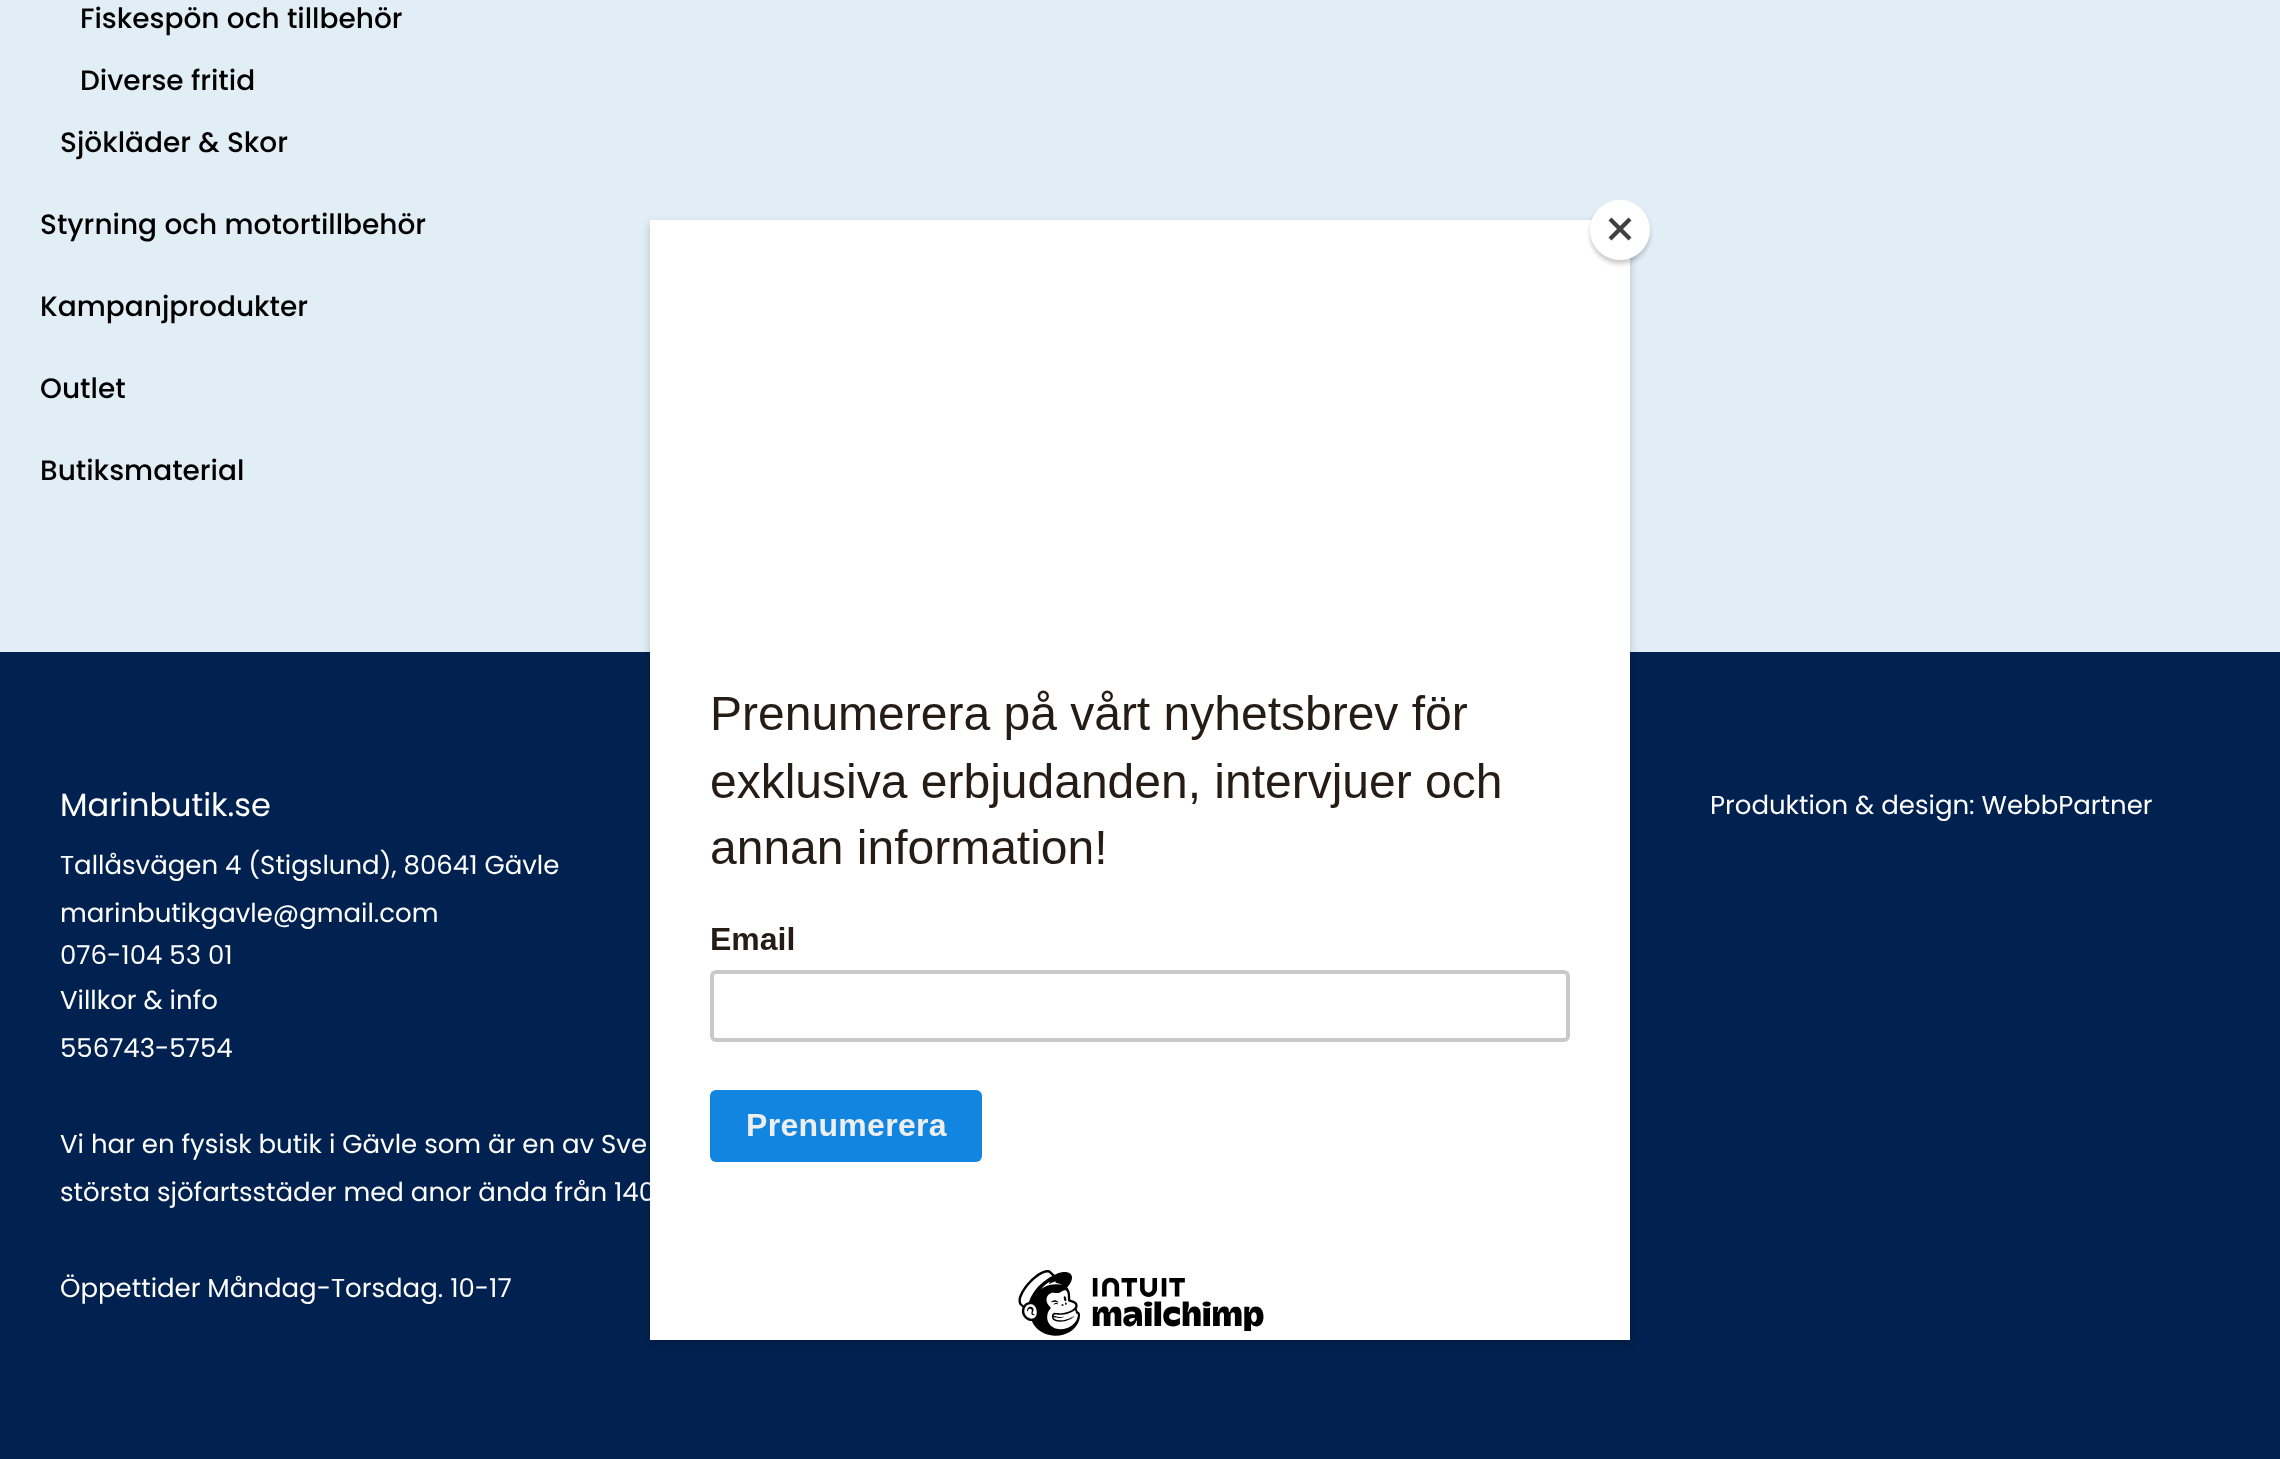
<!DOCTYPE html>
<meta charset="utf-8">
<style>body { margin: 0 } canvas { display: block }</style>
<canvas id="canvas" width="2280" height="1459"></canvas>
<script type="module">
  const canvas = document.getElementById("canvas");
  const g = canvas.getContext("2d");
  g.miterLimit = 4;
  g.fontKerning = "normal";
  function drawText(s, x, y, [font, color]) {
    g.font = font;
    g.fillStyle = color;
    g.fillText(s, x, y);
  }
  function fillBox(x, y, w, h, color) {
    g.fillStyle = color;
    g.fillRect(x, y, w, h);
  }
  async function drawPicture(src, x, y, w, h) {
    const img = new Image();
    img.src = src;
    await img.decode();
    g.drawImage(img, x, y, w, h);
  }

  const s1 = ["500 28px Poppins", "#000000"];
  const s2 = ["32px Poppins", "#FFFFFF"];
  const s3 = ["26px Poppins", "#FFFFFF"];

  fillBox(0, 0, 2280, 1459, "#E2EEF6");
  drawText("Fiskespön och tillbehör", 80, 28, s1);
  drawText("Diverse fritid", 80, 90, s1);
  drawText("Sjökläder & Skor", 60, 152, s1);
  drawText("Styrning och motortillbehör", 40, 234, s1);
  drawText("Kampanjprodukter", 40, 316, s1);
  drawText("Outlet", 40, 398, s1);
  drawText("Butiksmaterial", 40, 480, s1);
  fillBox(0, 652, 2280, 807, "#012250");
  drawText("Marinbutik.se", 60, 816, s2);
  drawText("Tallåsvägen 4 (Stigslund), 80641 Gävle", 60, 874, s3);
  drawText("marinbutikgavle@gmail.com", 60, 922, s3);
  drawText("076-104 53 01", 60, 964, s3);
  drawText("Villkor & info", 60, 1009, s3);
  drawText("556743-5754", 60, 1057, s3);
  drawText("Vi har en fysisk butik i Gävle som är en av Sve", 60, 1153, s3);
  drawText("största sjöfartsstäder med anor ända från 140", 60, 1201, s3);
  drawText("Öppettider Måndag-Torsdag. 10-17", 60, 1297, s3);
  drawText("Produktion & design: WebbPartner", 1710, 814, s3);
  g.fillStyle = "rgba(0, 0, 0, 0.2)";
  g.filter = "blur(4px)";
  g.beginPath();
  g.rect(650, 224, 980, 1120);
  g.fill();
  g.filter = "none";
  await drawPicture("pic1.png", 650, 220, 980, 1120);
  g.filter = "blur(2px)";
  g.beginPath();
  g.roundRect(1590, 204, 60, 60, 30);
  g.fill();
  g.filter = "none";
  g.fillStyle = "#FFFFFF";
  g.beginPath();
  g.arc(1620, 230, 30, 0, Math.PI * 2);
  g.fill();
  g.fillStyle = "#414141";
  g.beginPath();
  g.moveTo(1628.5, 217.5);
  g.lineTo(1631.5, 220.5);
  g.lineTo(1611.5, 240.5);
  g.lineTo(1608.5, 237.5);
  g.closePath();
  g.fill();
  g.beginPath();
  g.moveTo(1608.5, 220.5);
  g.lineTo(1611.5, 217.5);
  g.lineTo(1631.5, 237.5);
  g.lineTo(1628.5, 240.5);
  g.closePath();
  g.fill();
</script>
